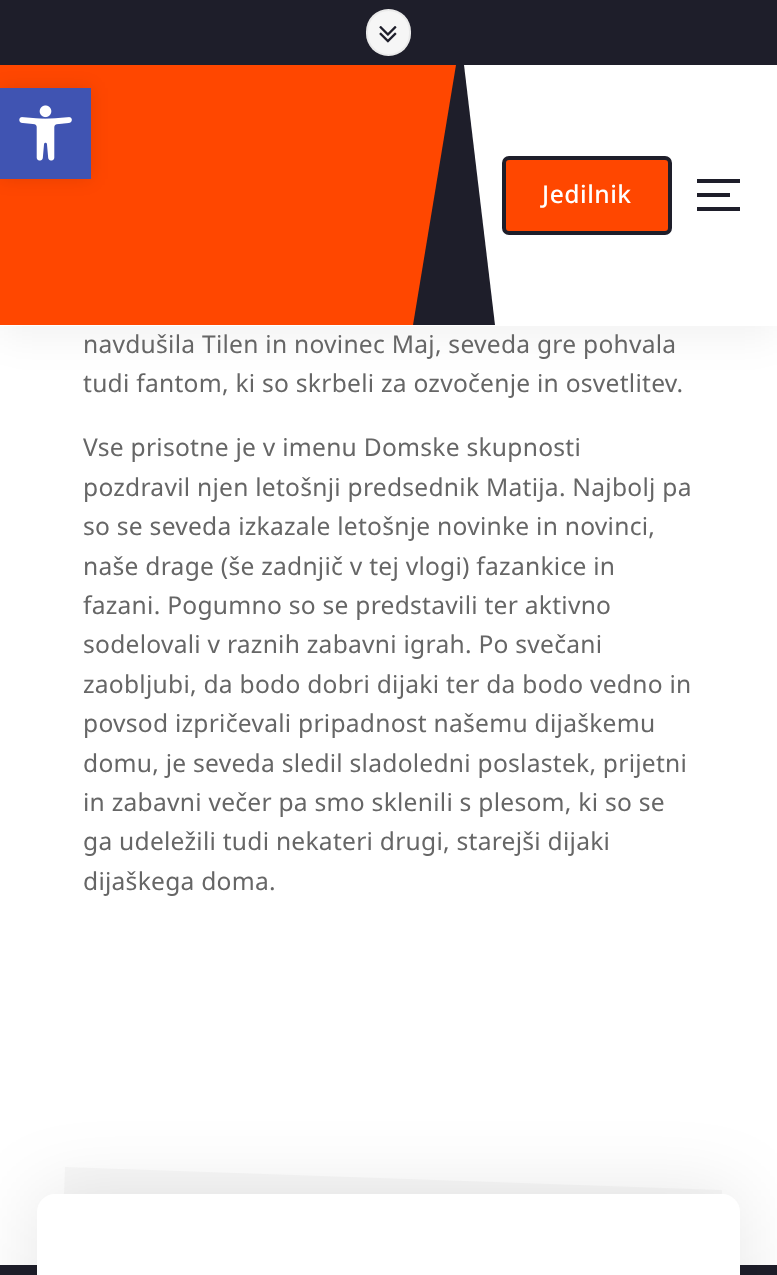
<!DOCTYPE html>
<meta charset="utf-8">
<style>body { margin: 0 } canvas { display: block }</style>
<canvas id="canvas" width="777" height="1275"></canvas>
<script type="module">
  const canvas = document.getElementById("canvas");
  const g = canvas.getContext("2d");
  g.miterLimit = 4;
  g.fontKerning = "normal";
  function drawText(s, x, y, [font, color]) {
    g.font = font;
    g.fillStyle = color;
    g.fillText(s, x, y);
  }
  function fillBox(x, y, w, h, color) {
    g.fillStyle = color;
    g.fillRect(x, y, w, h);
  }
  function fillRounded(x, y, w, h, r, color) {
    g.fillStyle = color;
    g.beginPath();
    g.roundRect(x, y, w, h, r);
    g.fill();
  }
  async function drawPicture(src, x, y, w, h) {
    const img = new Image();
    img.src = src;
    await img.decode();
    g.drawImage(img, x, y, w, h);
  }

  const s1 = ["500 24.6px Noto Sans", "#FFFFFF"];
  const s2 = ["24.6px Noto Sans", "#666666"];

  fillBox(0, 0, 777, 1275, "#FFFFFF");
  g.fillStyle = "rgba(0, 0, 0, 0.05)";
  g.filter = "blur(19px)";
  g.beginPath();
  g.rect(0, 12, 777, 326);
  g.fill();
  g.filter = "none";
  fillBox(0, 65, 777, 261, "#FFFFFF");
  fillBox(0, 0, 777, 65, "#1E1E2A");
  g.beginPath();
  g.moveTo(0, 65);
  g.lineTo(0, 325);
  g.lineTo(495, 325);
  g.lineTo(464, 65);
  g.closePath();
  g.fill();
  g.fillStyle = "#FF4700";
  g.beginPath();
  g.moveTo(0, 65);
  g.lineTo(0, 325);
  g.lineTo(413, 325);
  g.lineTo(456, 65);
  g.closePath();
  g.fill();
  g.fillStyle = "rgba(0, 0, 0, 0.1)";
  g.filter = "blur(9px)";
  g.beginPath();
  g.rect(0, 88, 91, 91);
  g.fill();
  g.filter = "none";
  fillBox(0, 88, 91, 91, "#4054B2");
  await drawPicture("pic1.png", 19, 105, 53, 56);
  fillRounded(366, 9, 45, 47, 22.5, "#F6F6F6");
  g.beginPath();
  g.roundRect(367, 10, 43, 45, 21.5);
  g.strokeStyle = "rgba(189, 189, 189, 0.2)";
  g.lineWidth = 2;
  g.stroke();
  await drawPicture("pic2.png", 379, 26, 18, 17);
  g.fillStyle = "#FF4700";
  g.beginPath();
  g.roundRect(504, 158, 166, 75, 5);
  g.fill();
  g.strokeStyle = "#1E1E2A";
  g.lineWidth = 4;
  g.stroke();
  g.letterSpacing = "0.5px";
  drawText("Jedilnik", 542, 203, s1);
  fillBox(697, 179, 43, 4, "#1E1E2A");
  fillBox(697, 193, 33, 4, "#1E1E2A");
  fillBox(697, 207, 43, 4, "#1E1E2A");
  g.letterSpacing = "0.25px";
  drawText("navdušila Tilen in novinec Maj, seveda gre pohvala", 83, 353, s2);
  drawText("tudi fantom, ki so skrbeli za ozvočenje in osvetlitev.", 83, 392, s2);
  drawText("Vse prisotne je v imenu Domske skupnosti", 83, 456, s2);
  drawText("pozdravil njen letošnji predsednik Matija. Najbolj pa", 83, 496, s2);
  drawText("so se seveda izkazale letošnje novinke in novinci,", 83, 535, s2);
  drawText("naše drage (še zadnjič v tej vlogi) fazankice in", 83, 575, s2);
  drawText("fazani. Pogumno so se predstavili ter aktivno", 83, 614, s2);
  drawText("sodelovali v raznih zabavni igrah. Po svečani", 83, 653, s2);
  drawText("zaobljubi, da bodo dobri dijaki ter da bodo vedno in", 83, 693, s2);
  drawText("povsod izpričevali pripadnost našemu dijaškemu", 83, 732, s2);
  drawText("domu, je seveda sledil sladoledni poslastek, prijetni", 83, 772, s2);
  drawText("in zabavni večer pa smo sklenili s plesom, ki so se", 83, 811, s2);
  drawText("ga udeležili tudi nekateri drugi, starejši dijaki", 83, 850, s2);
  drawText("dijaškega doma.", 83, 890, s2);
  fillBox(0, 1265, 777, 10, "#1E1E2A");
  g.fillStyle = "rgba(231, 231, 231, 0.3)";
  g.beginPath();
  g.moveTo(65, 1167);
  g.lineTo(722, 1190);
  g.lineTo(712, 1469);
  g.lineTo(55, 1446);
  g.closePath();
  g.fill();
  g.fillStyle = "rgba(0, 0, 0, 0.1)";
  g.filter = "blur(38.5px)";
  g.beginPath();
  g.roundRect(37, 1194, 703, 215, 18);
  g.fill();
  g.filter = "none";
  fillRounded(37, 1194, 703, 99, 18, "#FFFFFF");
</script>
